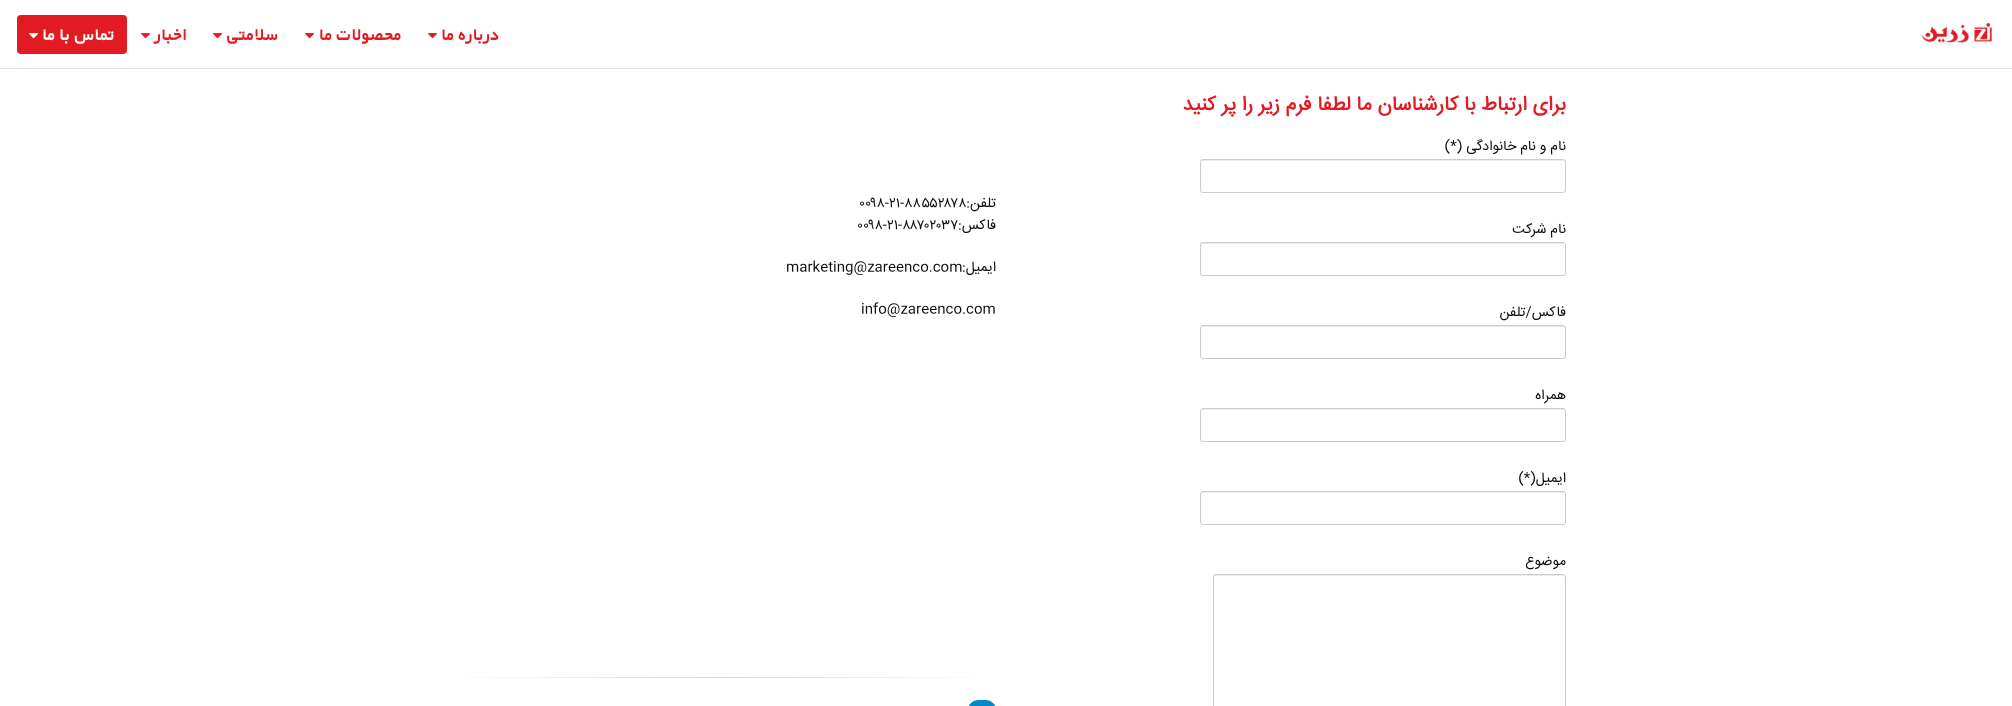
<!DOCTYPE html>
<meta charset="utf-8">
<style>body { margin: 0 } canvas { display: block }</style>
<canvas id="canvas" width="2012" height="706"></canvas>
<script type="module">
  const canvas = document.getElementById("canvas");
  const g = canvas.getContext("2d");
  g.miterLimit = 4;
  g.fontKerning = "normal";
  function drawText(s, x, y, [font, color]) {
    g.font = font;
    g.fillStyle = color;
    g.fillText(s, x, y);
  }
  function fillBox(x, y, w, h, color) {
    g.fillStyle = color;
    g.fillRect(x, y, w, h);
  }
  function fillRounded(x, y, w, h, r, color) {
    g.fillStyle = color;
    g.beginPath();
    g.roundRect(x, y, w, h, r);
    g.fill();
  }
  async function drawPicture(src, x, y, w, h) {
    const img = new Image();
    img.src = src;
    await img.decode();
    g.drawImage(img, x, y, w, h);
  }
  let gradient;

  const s1 = ["bold 19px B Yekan", "#E21B22"];
  const s2 = ["bold 19px B Yekan", "#FFFFFF"];
  const s3 = ["bold 20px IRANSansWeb", "#E21B22"];
  const s4 = ["14px IRANSansWeb", "#0C0C0C"];

  fillBox(0, 0, 2012, 706, "#FFFFFF");
  fillBox(0, 68, 2012, 1, "#E6E6E6");
  await drawPicture("pic1.png", 1921, 22, 71, 21);
  g.direction = "rtl";
  drawText("درباره ما", 500, 41, s1);
  await drawPicture("pic2.png", 428, 33, 9, 6);
  drawText("محصولات ما", 402, 41, s1);
  await drawPicture("pic2.png", 305, 33, 9, 6);
  drawText("سلامتی", 279, 41, s1);
  await drawPicture("pic2.png", 213, 33, 9, 6);
  drawText("اخبار", 187, 41, s1);
  await drawPicture("pic2.png", 141, 33, 9, 6);
  fillRounded(17, 15, 110, 39, 4, "#E21B22");
  drawText("تماس با ما", 115, 41, s2);
  await drawPicture("pic3.png", 29, 33, 9, 6);
  drawText("برای ارتباط با کارشناسان ما لطفا فرم زیر را پر کنید", 1566, 110, s3);
  drawText("نام و نام خانوادگی (*)", 1566, 150, s4);
  g.fillStyle = "#ECECEC";
  g.beginPath();
  g.moveTo(1203, 161);
  g.lineTo(1563, 161);
  g.bezierCurveTo(1564, 161, 1565, 162, 1565, 163);
  g.bezierCurveTo(1565, 162, 1565, 160, 1563, 160);
  g.lineTo(1203, 160);
  g.bezierCurveTo(1201, 160, 1201, 162, 1201, 163);
  g.bezierCurveTo(1201, 162, 1202, 161, 1203, 161);
  g.closePath();
  g.fill();
  g.beginPath();
  g.roundRect(1200.5, 159.5, 365, 33, 2.5);
  g.strokeStyle = "#CCCCCC";
  g.stroke();
  drawText("نام شرکت", 1566, 233, s4);
  g.fillStyle = "#ECECEC";
  g.beginPath();
  g.moveTo(1203, 244);
  g.lineTo(1563, 244);
  g.bezierCurveTo(1564, 244, 1565, 245, 1565, 246);
  g.bezierCurveTo(1565, 245, 1565, 243, 1563, 243);
  g.lineTo(1203, 243);
  g.bezierCurveTo(1201, 243, 1201, 245, 1201, 246);
  g.bezierCurveTo(1201, 245, 1202, 244, 1203, 244);
  g.closePath();
  g.fill();
  g.beginPath();
  g.roundRect(1200.5, 242.5, 365, 33, 2.5);
  g.stroke();
  drawText("فاکس/تلفن", 1566, 316, s4);
  g.fillStyle = "#ECECEC";
  g.beginPath();
  g.moveTo(1203, 327);
  g.lineTo(1563, 327);
  g.bezierCurveTo(1564, 327, 1565, 328, 1565, 329);
  g.bezierCurveTo(1565, 328, 1565, 326, 1563, 326);
  g.lineTo(1203, 326);
  g.bezierCurveTo(1201, 326, 1201, 328, 1201, 329);
  g.bezierCurveTo(1201, 328, 1202, 327, 1203, 327);
  g.closePath();
  g.fill();
  g.beginPath();
  g.roundRect(1200.5, 325.5, 365, 33, 2.5);
  g.stroke();
  drawText("همراه", 1566, 399, s4);
  g.fillStyle = "#ECECEC";
  g.beginPath();
  g.moveTo(1203, 410);
  g.lineTo(1563, 410);
  g.bezierCurveTo(1564, 410, 1565, 411, 1565, 412);
  g.bezierCurveTo(1565, 411, 1565, 409, 1563, 409);
  g.lineTo(1203, 409);
  g.bezierCurveTo(1201, 409, 1201, 411, 1201, 412);
  g.bezierCurveTo(1201, 411, 1202, 410, 1203, 410);
  g.closePath();
  g.fill();
  g.beginPath();
  g.roundRect(1200.5, 408.5, 365, 33, 2.5);
  g.stroke();
  drawText("ایمیل(*)", 1566, 482, s4);
  g.fillStyle = "#ECECEC";
  g.beginPath();
  g.moveTo(1203, 493);
  g.lineTo(1563, 493);
  g.bezierCurveTo(1564, 493, 1565, 494, 1565, 495);
  g.bezierCurveTo(1565, 494, 1565, 492, 1563, 492);
  g.lineTo(1203, 492);
  g.bezierCurveTo(1201, 492, 1201, 494, 1201, 495);
  g.bezierCurveTo(1201, 494, 1202, 493, 1203, 493);
  g.closePath();
  g.fill();
  g.beginPath();
  g.roundRect(1200.5, 491.5, 365, 33, 2.5);
  g.stroke();
  drawText("موضوع", 1566, 565, s4);
  g.fillStyle = "#ECECEC";
  g.beginPath();
  g.moveTo(1216, 576);
  g.lineTo(1563, 576);
  g.bezierCurveTo(1564, 576, 1565, 577, 1565, 578);
  g.bezierCurveTo(1565, 577, 1565, 575, 1563, 575);
  g.lineTo(1216, 575);
  g.bezierCurveTo(1214, 575, 1214, 577, 1214, 578);
  g.bezierCurveTo(1214, 577, 1215, 576, 1216, 576);
  g.closePath();
  g.fill();
  g.beginPath();
  g.roundRect(1213.5, 574.5, 352, 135, 2.5);
  g.stroke();
  drawText("تلفن:", 996, 207, s4);
  g.direction = "ltr";
  drawText("۰۰۹۸-۲۱-۸۸۵۵۲۸۷۸", 859, 207, s4);
  g.direction = "rtl";
  drawText("فاکس:", 996, 229, s4);
  g.direction = "ltr";
  drawText("۰۰۹۸-۲۱-۸۸۷۰۲۰۳۷", 857, 229, s4);
  g.direction = "rtl";
  drawText("ایمیل:", 996, 271, s4);
  g.direction = "ltr";
  drawText("marketing@zareenco.com", 786, 271, s4);
  drawText("info@zareenco.com", 861, 313, s4);
  gradient = g.createLinearGradient(996, 678, 446, 678);
  gradient.addColorStop(0, "#FFFFFF");
  gradient.addColorStop(0.5, "#D9D9D9");
  gradient.addColorStop(1, "#FFFFFF");
  g.fillStyle = gradient;
  g.fillRect(464, 677, 514, 1);
  fillRounded(968, 700, 28, 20, 14, "#0088CC");
</script>
